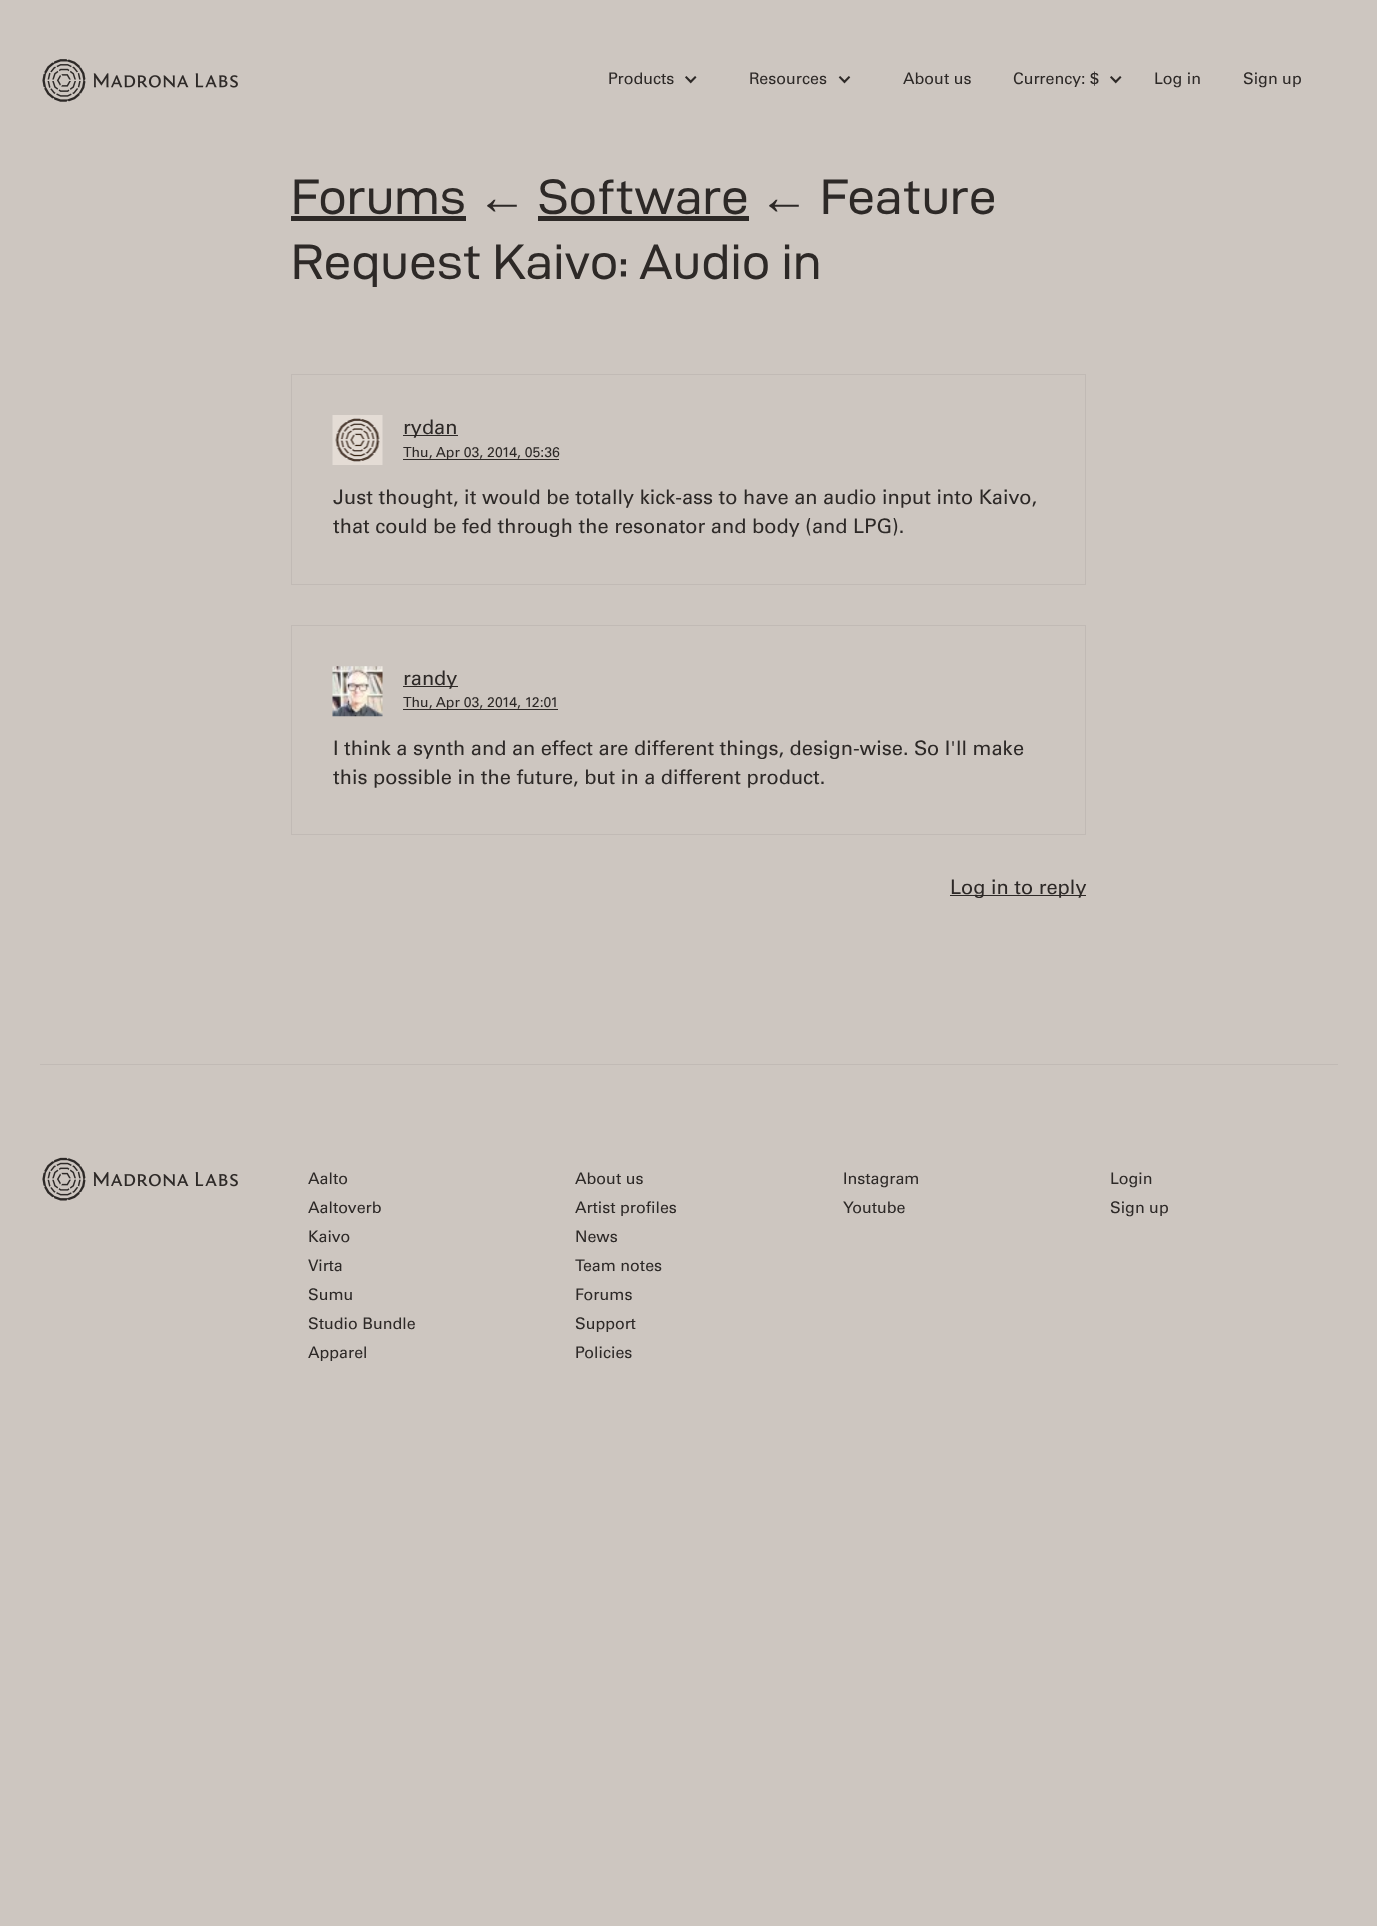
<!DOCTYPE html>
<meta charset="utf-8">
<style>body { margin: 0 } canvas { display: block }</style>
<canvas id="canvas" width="1377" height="1926"></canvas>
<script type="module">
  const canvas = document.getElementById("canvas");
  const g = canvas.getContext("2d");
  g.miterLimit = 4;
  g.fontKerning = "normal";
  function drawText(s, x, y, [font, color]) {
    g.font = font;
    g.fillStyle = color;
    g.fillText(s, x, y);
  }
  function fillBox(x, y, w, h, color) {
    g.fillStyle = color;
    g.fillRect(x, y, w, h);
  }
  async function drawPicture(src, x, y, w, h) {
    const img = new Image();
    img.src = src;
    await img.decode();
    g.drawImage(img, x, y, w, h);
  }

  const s1 = ["16px Univers", "#2D2927"];
  const s2 = ["50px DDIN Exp", "#2D2927"];
  const s3 = ["50px Liberation Sans", "#2D2927"];
  const s4 = ["20px Univers", "#2D2927"];
  const s5 = ["14px Univers", "#2D2927"];

  fillBox(0, 0, 1377, 1926, "#CDC6C0");
  await drawPicture("pic1.png", 42, 59, 196, 43);
  drawText("Products", 608, 84, s1);
  await drawPicture("pic2.png", 685, 76, 12, 8);
  drawText("Resources", 749, 84, s1);
  await drawPicture("pic3.png", 838, 76, 13, 8);
  drawText("About us", 903, 84, s1);
  drawText("Currency: $", 1013, 84, s1);
  await drawPicture("pic2.png", 1110, 76, 12, 8);
  drawText("Log in", 1154, 84, s1);
  drawText("Sign up", 1243, 84, s1);
  drawText("Forums", 291, 214, s2);
  fillBox(291, 216, 175, 5, "#2D2927");
  drawText("←", 477, 214, s3);
  drawText("Software", 538, 214, s2);
  fillBox(538, 216, 211, 5, "#2D2927");
  drawText("←", 759, 214, s3);
  drawText("Feature", 820, 214, s2);
  drawText("Request Kaivo: Audio in", 291, 279, s2);
  g.strokeStyle = "#C1BAB5";
  g.strokeRect(291.5, 374.5, 794, 210);
  await drawPicture("pic4.png", 332, 415, 51, 50);
  fillBox(403, 435, 55, 1, "#2D2927");
  drawText("rydan", 403, 434, s4);
  fillBox(403, 459, 156, 1, "#2D2927");
  drawText("Thu, Apr 03, 2014, 05:36", 403, 457, s5);
  drawText("Just thought, it would be totally kick-ass to have an audio input into Kaivo,", 333, 504, s4);
  drawText("that could be fed through the resonator and body (and LPG).", 333, 533, s4);
  g.strokeRect(291.5, 625.5, 794, 209);
  await drawPicture("pic5.png", 332, 666, 51, 51);
  fillBox(403, 686, 55, 1, "#2D2927");
  drawText("randy", 403, 685, s4);
  fillBox(403, 709, 155, 1, "#2D2927");
  drawText("Thu, Apr 03, 2014, 12:01", 403, 707, s5);
  drawText("I think a synth and an effect are different things, design-wise. So I'll make", 333, 755, s4);
  drawText("this possible in the future, but in a different product.", 333, 784, s4);
  fillBox(950, 895, 136, 1, "#2D2927");
  drawText("Log in to reply", 950, 894, s4);
  fillBox(40, 1064, 1298, 1, "#C1BAB5");
  await drawPicture("pic6.png", 42, 1157, 196, 44);
  drawText("Aalto", 308, 1184, s1);
  drawText("Aaltoverb", 308, 1213, s1);
  drawText("Kaivo", 308, 1242, s1);
  drawText("Virta", 308, 1271, s1);
  drawText("Sumu", 308, 1300, s1);
  drawText("Studio Bundle", 308, 1329, s1);
  drawText("Apparel", 308, 1358, s1);
  drawText("About us", 575, 1184, s1);
  drawText("Artist profiles", 575, 1213, s1);
  drawText("News", 575, 1242, s1);
  drawText("Team notes", 575, 1271, s1);
  drawText("Forums", 575, 1300, s1);
  drawText("Support", 575, 1329, s1);
  drawText("Policies", 575, 1358, s1);
  drawText("Instagram", 843, 1184, s1);
  drawText("Youtube", 843, 1213, s1);
  drawText("Login", 1110, 1184, s1);
  drawText("Sign up", 1110, 1213, s1);
</script>
